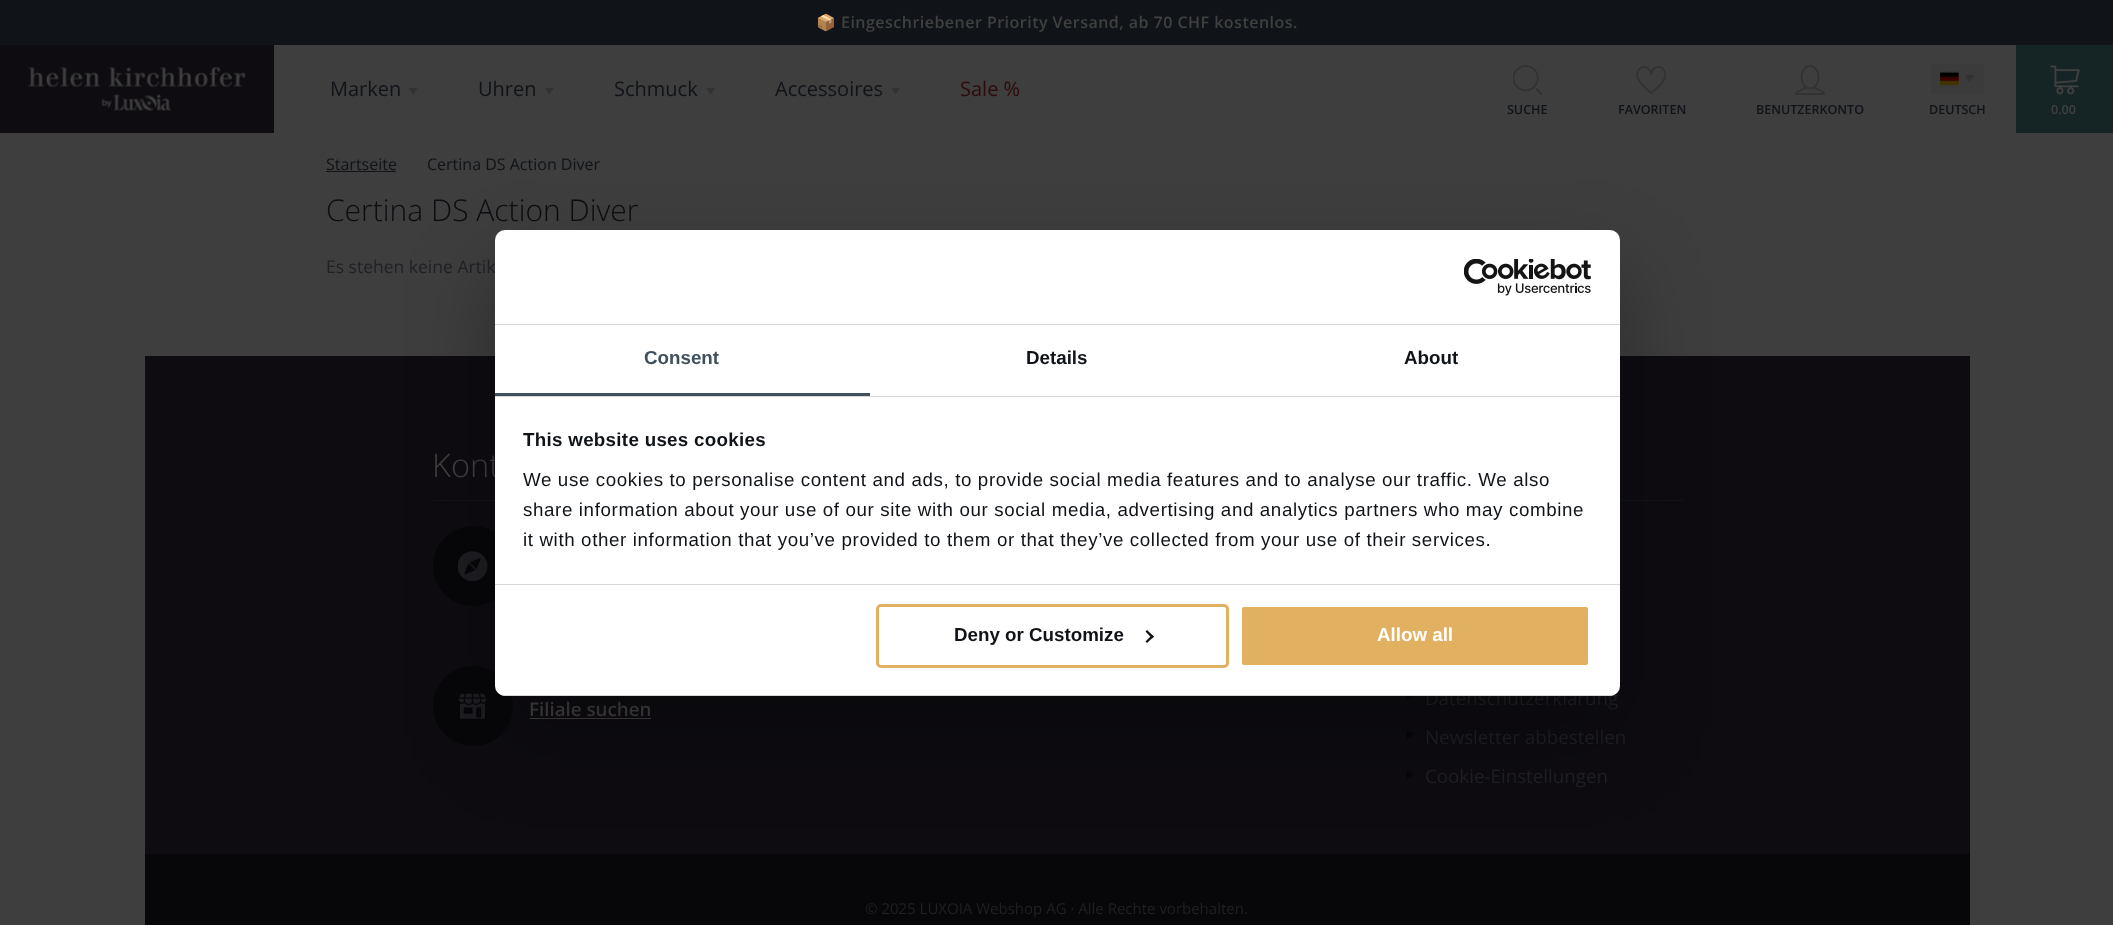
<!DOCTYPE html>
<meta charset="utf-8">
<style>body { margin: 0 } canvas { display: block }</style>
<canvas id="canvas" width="2113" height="925"></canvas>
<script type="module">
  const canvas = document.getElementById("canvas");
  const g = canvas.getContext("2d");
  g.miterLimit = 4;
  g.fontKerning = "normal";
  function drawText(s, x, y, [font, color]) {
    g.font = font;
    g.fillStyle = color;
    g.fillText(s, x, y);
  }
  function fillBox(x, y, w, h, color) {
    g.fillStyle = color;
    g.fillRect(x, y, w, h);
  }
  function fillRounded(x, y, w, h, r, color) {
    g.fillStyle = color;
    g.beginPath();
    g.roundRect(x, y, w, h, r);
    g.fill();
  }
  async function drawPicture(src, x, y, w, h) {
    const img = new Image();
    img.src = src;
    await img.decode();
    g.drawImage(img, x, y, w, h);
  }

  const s1 = ["bold 16px Noto Color Emoji", "#404040"];
  const s2 = ["600 16px Open Sans", "#404040"];
  const s3 = ["20px Open Sans", "#101418"];
  const s4 = ["20px Open Sans", "#2D0B0A"];
  const s5 = ["600 12.5px Open Sans", "#101418"];
  const s6 = ["600 12.5px Open Sans", "#404040"];
  const s7 = ["16px Open Sans", "#101418"];
  const s8 = ["300 30px Open Sans", "#0E0C11"];
  const s9 = ["17.5px Open Sans", "#1F2125"];
  const s10 = ["300 32.5px Open Sans", "#404040"];
  const s11 = ["600 18.75px Open Sans", "#404040"];
  const s12 = ["18.75px Open Sans", "#1F2125"];
  const s13 = ["15px Open Sans", "#1F2125"];
  const s14 = ["bold 18.75px Liberation Sans", "#40505F"];
  const s15 = ["bold 18.75px Liberation Sans", "#101418"];
  const s16 = ["18.75px Liberation Sans", "#101418"];
  const s17 = ["bold 18.75px Liberation Sans", "#FFFFFF"];

  fillBox(0, 0, 2113, 925, "#3E3E3E");
  fillBox(0, 0, 2113, 45, "#101418");
  g.letterSpacing = "0.48px";
  drawText("📦", 816, 28, s1);
  drawText("Eingeschriebener Priority Versand, ab 70 CHF kostenlos.", 841, 28, s2);
  fillBox(0, 45, 274, 88, "#0E0C11");
  await drawPicture("pic1.png", 28, 66, 218, 45);
  g.letterSpacing = "0px";
  drawText("Marken", 330, 96, s3);
  await drawPicture("pic2.png", 409, 88, 9, 7);
  drawText("Uhren", 478, 96, s3);
  await drawPicture("pic3.png", 545, 88, 9, 7);
  drawText("Schmuck", 614, 96, s3);
  await drawPicture("pic4.png", 706, 88, 9, 7);
  drawText("Accessoires", 775, 96, s3);
  await drawPicture("pic4.png", 891, 88, 9, 7);
  drawText("Sale %", 960, 96, s4);
  await drawPicture("pic5.png", 1513, 65, 30, 30);
  drawText("SUCHE", 1507, 114, s5);
  await drawPicture("pic6.png", 1636, 66, 30, 28);
  drawText("FAVORITEN", 1618, 114, s5);
  await drawPicture("pic7.png", 1795, 65, 30, 30);
  drawText("BENUTZERKONTO", 1756, 114, s5);
  fillBox(1931, 64, 53, 30, "#3B3B3C");
  await drawPicture("pic8.png", 1940, 71, 19, 15);
  await drawPicture("pic9.png", 1965, 75, 9, 7);
  drawText("DEUTSCH", 1929, 114, s5);
  fillBox(2016, 45, 97, 88, "#152525");
  await drawPicture("pic10.png", 2050, 65, 30, 30);
  drawText("0.00", 2051, 114, s6);
  drawText("Startseite", 326, 170, s7);
  fillBox(326, 171, 70, 1, "#101418");
  drawText("Certina DS Action Diver", 427, 170, s7);
  drawText("Certina DS Action Diver", 326, 221, s8);
  drawText("Es stehen keine Artik", 326, 273, s9);
  fillBox(145, 356, 1825, 498, "#0E0C11");
  fillBox(433, 500, 62, 1, "#141318");
  drawText("Kont", 432, 477, s10);
  g.fillStyle = "#070609";
  g.beginPath();
  g.arc(473, 566, 40, 0, Math.PI * 2);
  g.fill();
  await drawPicture("pic11.png", 458, 551, 30, 30);
  g.beginPath();
  g.arc(473, 706, 40, 0, Math.PI * 2);
  g.fill();
  await drawPicture("pic12.png", 458, 693, 29, 26);
  drawText("Filiale suchen", 529, 716, s11);
  fillBox(530, 718, 121, 1, "#404040");
  fillBox(1620, 500, 63, 1, "#141318");
  await drawPicture("pic13.png", 1406, 696, 8, 4);
  drawText("Datenschutzerklärung", 1425, 705, s12);
  await drawPicture("pic14.png", 1406, 730, 8, 9);
  drawText("Newsletter abbestellen", 1425, 744, s12);
  await drawPicture("pic14.png", 1406, 770, 8, 9);
  drawText("Cookie-Einstellungen", 1425, 783, s12);
  fillBox(145, 854, 1825, 71, "#070609");
  drawText("© 2025 LUXOIA Webshop AG · Alle Rechte vorbehalten.", 865, 914, s13);
  g.fillStyle = "rgba(0, 0, 0, 0.3)";
  g.filter = "blur(42.5px)";
  g.beginPath();
  g.roundRect(495, 270, 1125, 466, 10);
  g.fill();
  g.filter = "none";
  fillRounded(495, 230, 1125, 466, 10, "#FFFFFF");
  fillBox(495, 324, 1125, 1, "#D6D6D6");
  await drawPicture("pic15.png", 1464, 259, 127, 37);
  fillBox(495, 396, 1125, 1, "#D6D6D6");
  fillBox(495, 393, 375, 3, "#40505F");
  drawText("Consent", 644, 364, s14);
  drawText("Details", 1026, 364, s15);
  drawText("About", 1404, 364, s15);
  fillBox(495, 584, 1125, 1, "#D6D6D6");
  g.letterSpacing = "0.3px";
  drawText("This website uses cookies", 523, 446, s15);
  g.letterSpacing = "0.62px";
  drawText("We use cookies to personalise content and ads, to provide social media features and to analyse our traffic. We also", 523, 486, s16);
  drawText("share information about your use of our site with our social media, advertising and analytics partners who may combine", 523, 516, s16);
  drawText("it with other information that you’ve provided to them or that they’ve collected from your use of their services.", 523, 546, s16);
  g.save();
  g.beginPath();
  g.roundRect(495, 230, 1125, 466, 10);
  g.clip();
  fillBox(495, 695, 1125, 1, "#D6D6D6");
  g.restore();
  g.beginPath();
  g.roundRect(877.5, 605.5, 350, 61, 3.5);
  g.strokeStyle = "#E1B060";
  g.lineWidth = 3;
  g.stroke();
  g.letterSpacing = "0px";
  drawText("Deny or Customize", 954, 641, s15);
  g.fillStyle = "#141414";
  g.beginPath();
  g.moveTo(1147, 630);
  g.lineTo(1154, 636.5);
  g.lineTo(1152, 638.5);
  g.lineTo(1145.5, 631.5);
  g.closePath();
  g.fill();
  g.beginPath();
  g.moveTo(1152, 635);
  g.lineTo(1154, 636.5);
  g.lineTo(1147, 643);
  g.lineTo(1145.5, 641.5);
  g.closePath();
  g.fill();
  g.fillStyle = "#E1B060";
  g.beginPath();
  g.roundRect(1240.5, 605.5, 349, 61, 3.5);
  g.fill();
  g.strokeStyle = "#FFFFFF";
  g.stroke();
  drawText("Allow all", 1377, 641, s17);
</script>
